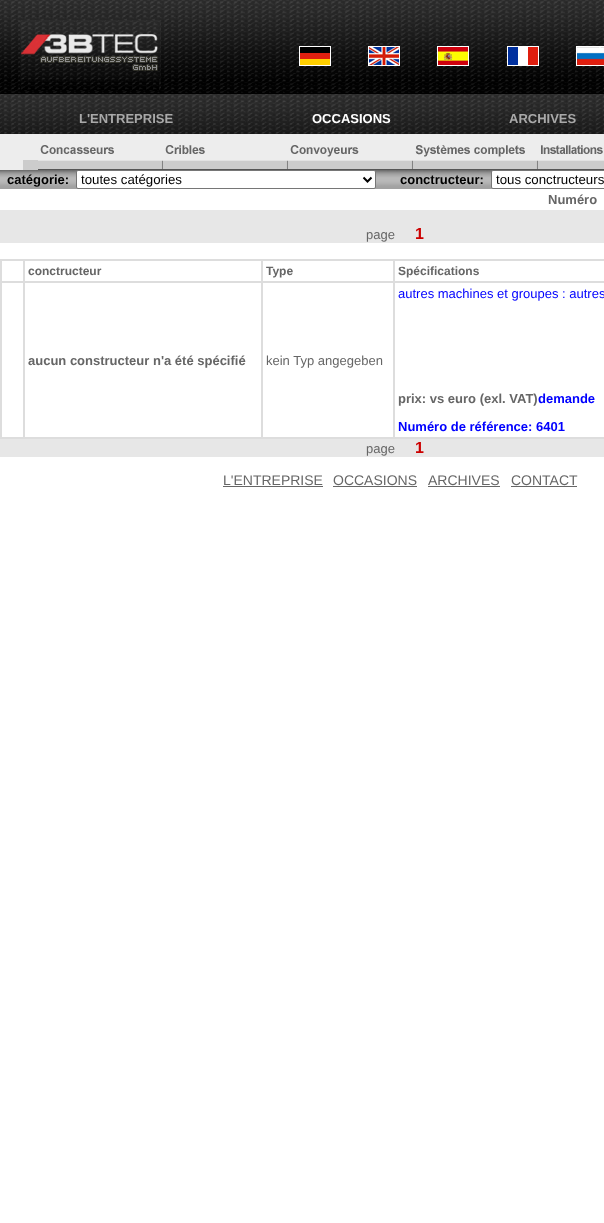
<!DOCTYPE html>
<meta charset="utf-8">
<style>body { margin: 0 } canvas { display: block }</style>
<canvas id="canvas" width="604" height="1223"></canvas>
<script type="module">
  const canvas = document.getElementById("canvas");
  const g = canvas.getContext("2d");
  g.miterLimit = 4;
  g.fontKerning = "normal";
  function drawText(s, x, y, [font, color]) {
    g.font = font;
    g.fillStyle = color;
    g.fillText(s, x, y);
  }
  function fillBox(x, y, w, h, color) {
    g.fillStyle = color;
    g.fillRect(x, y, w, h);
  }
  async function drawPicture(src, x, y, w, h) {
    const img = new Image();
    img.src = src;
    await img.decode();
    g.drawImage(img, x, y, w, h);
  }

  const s1 = ["bold 13px Liberation Sans", "#A9A9A9"];
  const s2 = ["bold 13px Liberation Sans", "#FFFFFF"];
  const s3 = ["bold 13px Liberation Sans", "#000000"];
  const s4 = ["13.25px Liberation Sans", "#000000"];
  const s5 = ["bold 13px Liberation Sans", "#666666"];
  const s6 = ["13px Liberation Sans", "#666666"];
  const s7 = ["bold 16px Liberation Sans", "#CC0000"];
  const s8 = ["bold 12px Liberation Sans", "#666666"];
  const s9 = ["13px Liberation Sans", "#0000FF"];
  const s10 = ["bold 13px Liberation Sans", "#0000FF"];
  const s11 = ["14px Liberation Sans", "#666666"];

  fillBox(0, 0, 604, 1223, "#FFFFFF");
  await drawPicture("pic1.png", 0, 0, 604, 134);
  await drawPicture("pic2.png", 20, 20, 141, 71);
  g.strokeStyle = "#FFFFFF";
  g.strokeRect(299.5, 46.5, 31, 19);
  await drawPicture("pic3.png", 300, 47, 30, 18);
  g.strokeRect(368.5, 46.5, 31, 19);
  await drawPicture("pic4.png", 369, 47, 30, 18);
  g.strokeRect(437.5, 46.5, 31, 19);
  await drawPicture("pic5.png", 438, 47, 30, 18);
  g.strokeRect(507.5, 46.5, 31, 19);
  await drawPicture("pic6.png", 508, 47, 30, 18);
  g.strokeRect(576.5, 46.5, 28, 19);
  await drawPicture("pic7.png", 577, 47, 27, 18);
  drawText("L'ENTREPRISE", 79, 123, s1);
  drawText("OCCASIONS", 312, 123, s2);
  drawText("ARCHIVES", 509, 123, s1);
  fillBox(0, 134, 604, 36, "#EDEDED");
  fillBox(23, 160, 15, 10, "#CCCCCC");
  await drawPicture("pic8.png", 38, 145, 125, 25);
  await drawPicture("pic9.png", 163, 145, 125, 25);
  await drawPicture("pic10.png", 288, 145, 125, 25);
  await drawPicture("pic11.png", 413, 145, 125, 25);
  await drawPicture("pic12.png", 538, 145, 66, 25);
  await drawPicture("pic13.png", 0, 170, 493, 19);
  drawText("catégorie:", 7, 184, s3);
  g.fillStyle = "#FFFFFF";
  g.beginPath();
  g.roundRect(76.5, 170.5, 299, 18, 1.5);
  g.fill();
  g.strokeStyle = "#767676";
  g.stroke();
  g.beginPath();
  g.moveTo(363.5, 177.5);
  g.lineTo(367.5, 181.5);
  g.lineTo(371.5, 177.5);
  g.strokeStyle = "#000000";
  g.lineWidth = 2;
  g.stroke();
  drawText("toutes catégories", 81, 184, s4);
  drawText("conctructeur:", 400, 184, s3);
  g.fillStyle = "#FFFFFF";
  g.beginPath();
  g.roundRect(491.5, 170.5, 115, 18, 1.5);
  g.fill();
  g.strokeStyle = "#767676";
  g.lineWidth = 1;
  g.stroke();
  drawText("tous conctructeurs", 496, 184, s4);
  drawText("Numéro", 548, 204, s5);
  fillBox(0, 210, 604, 33, "#E7E7E7");
  drawText("page", 366, 239, s6);
  drawText("1", 415, 239, s7);
  g.strokeStyle = "#DDDDDD";
  g.strokeRect(0.5, 259.5, 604, 179);
  g.strokeRect(1.5, 260.5, 22, 21);
  g.strokeRect(24.5, 260.5, 237, 21);
  drawText("conctructeur", 28, 275, s8);
  g.strokeRect(262.5, 260.5, 131, 21);
  drawText("Type", 266, 275, s8);
  g.strokeRect(394.5, 260.5, 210, 21);
  drawText("Spécifications", 398, 275, s8);
  g.strokeRect(1.5, 282.5, 22, 155);
  g.strokeRect(24.5, 282.5, 237, 155);
  drawText("aucun constructeur n'a été spécifié", 28, 365, s5);
  g.strokeRect(262.5, 282.5, 131, 155);
  drawText("kein Typ angegeben", 266, 365, s6);
  g.strokeRect(394.5, 282.5, 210, 155);
  drawText("autres machines et groupes : autres", 398, 298, s9);
  drawText("prix: vs euro (exl. VAT)", 398, 403, s5);
  drawText("demande", 538, 403, s10);
  drawText("Numéro de référence: 6401", 398, 431, s10);
  fillBox(0, 439, 604, 18, "#E7E7E7");
  drawText("page", 366, 453, s6);
  drawText("1", 415, 453, s7);
  drawText("L'ENTREPRISE", 223, 485, s11);
  fillBox(223, 486, 100, 1, "#666666");
  drawText("OCCASIONS", 333, 485, s11);
  fillBox(333, 486, 84, 1, "#666666");
  drawText("ARCHIVES", 428, 485, s11);
  fillBox(428, 486, 72, 1, "#666666");
  drawText("CONTACT", 511, 485, s11);
  fillBox(511, 486, 66, 1, "#666666");
</script>
